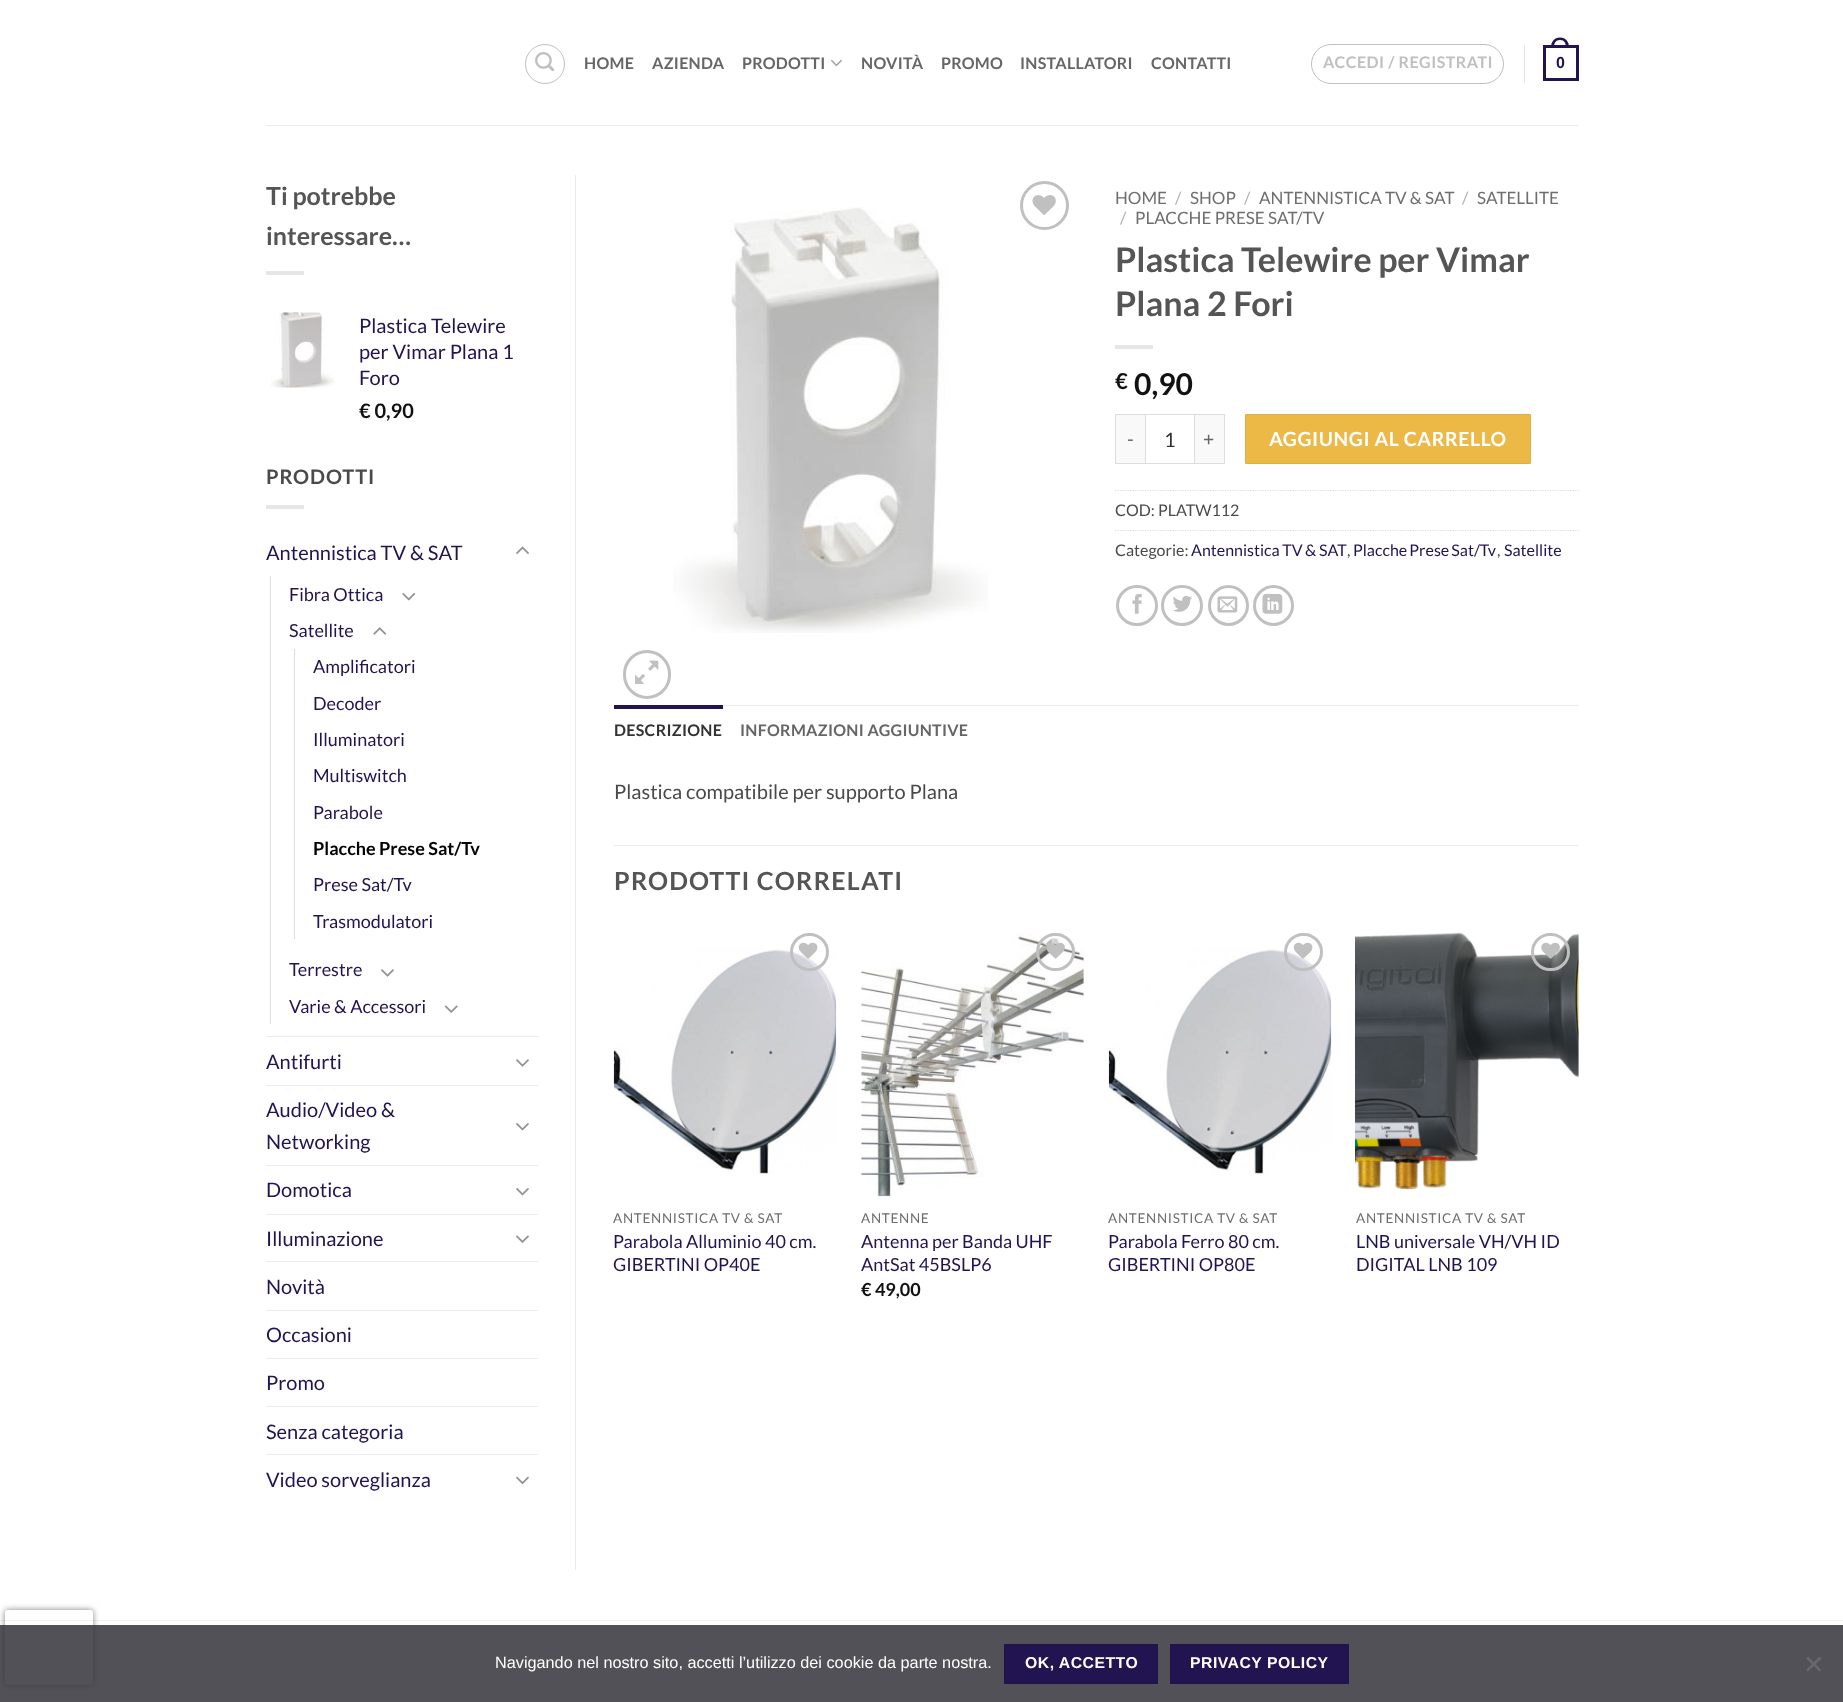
<!DOCTYPE html>
<meta charset="utf-8">
<style>body { margin: 0 } canvas { display: block }</style>
<canvas id="canvas" width="1843" height="1702"></canvas>
<script type="module">
  const canvas = document.getElementById("canvas");
  const g = canvas.getContext("2d");
  g.miterLimit = 4;
  g.fontKerning = "normal";
  function drawText(s, x, y, [font, color]) {
    g.font = font;
    g.fillStyle = color;
    g.fillText(s, x, y);
  }
  function fillBox(x, y, w, h, color) {
    g.fillStyle = color;
    g.fillRect(x, y, w, h);
  }
  async function drawPicture(src, x, y, w, h) {
    const img = new Image();
    img.src = src;
    await img.decode();
    g.drawImage(img, x, y, w, h);
  }

  const s1 = ["bold 16px Lato", "#666666"];
  const s2 = ["bold 16px Lato", "#C0C0C0"];
  const s3 = ["bold 16px Liberation Sans", "#211451"];
  const s4 = ["bold 25px Lato", "#555555"];
  const s5 = ["20px Lato", "#211451"];
  const s6 = ["bold 20px Lato", "#111111"];
  const s7 = ["bold 20px Lato", "#4A4A4A"];
  const s8 = ["18px Lato", "#211451"];
  const s9 = ["bold 18px Lato", "#000000"];
  const s10 = ["17px Lato", "#6E6E6E"];
  const s11 = ["17px Lato", "#B2B2B2"];
  const s12 = ["bold 34px Lato", "#555555"];
  const s13 = ["bold 22px Lato", "#111111"];
  const s14 = ["bold 30px Lato", "#111111"];
  const s15 = ["19.4px Lato", "#666666"];
  const s16 = ["20px Lato", "#333333"];
  const s17 = ["bold 19.4px Lato", "#FFFFFF"];
  const s18 = ["16px Lato", "#4A4A4A"];
  const s19 = ["16px Lato", "#211451"];
  const s20 = ["bold 16px Lato", "#333333"];
  const s21 = ["20px Lato", "#4A4A4A"];
  const s22 = ["13.5px Lato", "#6E6E6E"];
  const s23 = ["bold 18px Lato", "#111111"];
  const s24 = ["16.25px Liberation Sans", "#FFFFFF"];
  const s25 = ["bold 15.75px Liberation Sans", "#FFFFFF"];

  fillBox(0, 0, 1843, 1702, "#FFFFFF");
  g.beginPath();
  g.arc(545, 64, 19.5, 0, Math.PI * 2);
  g.strokeStyle = "#C0C0C0";
  g.stroke();
  await drawPicture("pic1.png", 535, 52, 20, 20);
  g.letterSpacing = "0.3px";
  drawText("HOME", 584, 69, s1);
  drawText("AZIENDA", 652, 69, s1);
  drawText("PRODOTTI", 742, 69, s1);
  await drawPicture("pic2.png", 830, 59, 12, 8);
  drawText("NOVITÀ", 861, 69, s1);
  drawText("PROMO", 941, 69, s1);
  drawText("INSTALLATORI", 1020, 69, s1);
  drawText("CONTATTI", 1151, 69, s1);
  g.beginPath();
  g.roundRect(1311.5, 44.5, 192, 39, 19.5);
  g.stroke();
  g.letterSpacing = "0.5px";
  drawText("ACCEDI / REGISTRATI", 1323, 68, s2);
  fillBox(1524, 45, 1, 38, "#E6E6E6");
  g.strokeStyle = "#211451";
  g.lineWidth = 3;
  g.strokeRect(1544.5, 46.5, 33, 33);
  g.fillStyle = "#211451";
  g.beginPath();
  g.moveTo(1560, 37.5);
  g.bezierCurveTo(1566, 37.5, 1569, 42, 1569, 47.5);
  g.lineTo(1551, 47.5);
  g.bezierCurveTo(1551, 42, 1554, 37.5, 1560, 37.5);
  g.closePath();
  g.moveTo(1560, 40);
  g.bezierCurveTo(1564.5, 40, 1566, 43.5, 1566, 47.5);
  g.lineTo(1554, 47.5);
  g.bezierCurveTo(1554, 43.5, 1555.5, 40, 1560, 40);
  g.closePath();
  g.fill("evenodd");
  g.letterSpacing = "0.3px";
  drawText("0", 1556, 68, s3);
  fillBox(266, 125, 1313, 1, "#EDEDED");
  g.letterSpacing = "0px";
  drawText("Ti potrebbe", 266, 205, s4);
  drawText("interessare…", 266, 245, s4);
  fillBox(266, 271, 38, 4, "#E6E6E6");
  await drawPicture("pic3.png", 271, 312, 64, 76);
  drawText("Plastica Telewire", 359, 333, s5);
  drawText("per Vimar Plana 1", 359, 359, s5);
  drawText("Foro", 359, 385, s5);
  drawText("€ 0,90", 359, 418, s6);
  g.letterSpacing = "1px";
  drawText("PRODOTTI", 266, 484, s7);
  fillBox(266, 505, 38, 4, "#E6E6E6");
  g.letterSpacing = "0px";
  drawText("Antennistica TV & SAT", 266, 560, s5);
  await drawPicture("pic4.png", 516, 546, 13, 8);
  fillBox(270, 576, 1, 448, "#DDDDDD");
  drawText("Fibra Ottica", 289, 601, s8);
  await drawPicture("pic5.png", 402, 593, 14, 8);
  drawText("Satellite", 289, 637, s8);
  await drawPicture("pic6.png", 373, 627, 14, 8);
  fillBox(294, 649, 1, 290, "#DDDDDD");
  drawText("Amplificatori", 313, 673, s8);
  drawText("Decoder", 313, 710, s8);
  drawText("Illuminatori", 313, 746, s8);
  drawText("Multiswitch", 313, 782, s8);
  drawText("Parabole", 313, 819, s8);
  drawText("Placche Prese Sat/Tv", 313, 855, s9);
  drawText("Prese Sat/Tv", 313, 891, s8);
  drawText("Trasmodulatori", 313, 928, s8);
  drawText("Terrestre", 289, 976, s8);
  await drawPicture("pic7.png", 381, 969, 13, 8);
  drawText("Varie & Accessori", 289, 1013, s8);
  await drawPicture("pic8.png", 444, 1005, 14, 8);
  fillBox(266, 1036, 272, 1, "#ECECEC");
  drawText("Antifurti", 266, 1069, s5);
  await drawPicture("pic7.png", 516, 1059, 13, 8);
  fillBox(266, 1085, 272, 1, "#ECECEC");
  drawText("Audio/Video &", 266, 1117, s5);
  drawText("Networking", 266, 1149, s5);
  await drawPicture("pic9.png", 516, 1123, 13, 8);
  fillBox(266, 1165, 272, 1, "#ECECEC");
  drawText("Domotica", 266, 1197, s5);
  await drawPicture("pic9.png", 516, 1188, 13, 8);
  fillBox(266, 1214, 272, 1, "#ECECEC");
  drawText("Illuminazione", 266, 1246, s5);
  await drawPicture("pic10.png", 516, 1235, 13, 8);
  fillBox(266, 1261, 272, 1, "#ECECEC");
  drawText("Novità", 266, 1294, s5);
  fillBox(266, 1310, 272, 1, "#ECECEC");
  drawText("Occasioni", 266, 1342, s5);
  fillBox(266, 1358, 272, 1, "#ECECEC");
  drawText("Promo", 266, 1390, s5);
  fillBox(266, 1406, 272, 1, "#ECECEC");
  drawText("Senza categoria", 266, 1439, s5);
  fillBox(266, 1454, 272, 1, "#ECECEC");
  drawText("Video sorveglianza", 266, 1487, s5);
  await drawPicture("pic11.png", 516, 1476, 13, 9);
  fillBox(575, 175, 1, 1395, "#ECECEC");
  await drawPicture("pic12.png", 673, 207, 315, 426);
  g.beginPath();
  g.arc(1044.5, 205.5, 23, 0, Math.PI * 2);
  g.strokeStyle = "#C0C0C0";
  g.stroke();
  await drawPicture("pic13.png", 1032, 195, 24, 20);
  g.beginPath();
  g.roundRect(624.5, 651.5, 45, 46, 22.5);
  g.stroke();
  await drawPicture("pic14.png", 635, 660, 24, 24);
  drawText("HOME", 1115, 204, s10);
  drawText("/", 1175, 204, s11);
  drawText("SHOP", 1190, 204, s10);
  drawText("/", 1244, 204, s11);
  drawText("ANTENNISTICA TV & SAT", 1259, 204, s10);
  drawText("/", 1462, 204, s11);
  drawText("SATELLITE", 1477, 204, s10);
  drawText("/", 1120, 224, s11);
  drawText("PLACCHE PRESE SAT/TV", 1135, 224, s10);
  drawText("Plastica Telewire per Vimar", 1115, 272, s12);
  drawText("Plana 2 Fori", 1115, 316, s12);
  fillBox(1115, 345, 38, 4, "#E6E6E6");
  drawText("€", 1115, 389, s13);
  drawText("0,90", 1134, 395, s14);
  fillBox(1116, 415, 29, 48, "#F9F9F9");
  fillBox(1115, 414, 30, 1, "#DDDDDD");
  fillBox(1115, 463, 30, 1, "#DDDDDD");
  fillBox(1115, 414, 1, 50, "#DDDDDD");
  g.letterSpacing = "0.6px";
  drawText("-", 1127, 446, s15);
  g.strokeStyle = "#DDDDDD";
  g.lineWidth = 1;
  g.strokeRect(1145.5, 414.5, 49, 49);
  g.letterSpacing = "0px";
  drawText("1", 1164, 447, s16);
  fillBox(1195, 415, 29, 48, "#F9F9F9");
  fillBox(1195, 414, 30, 1, "#DDDDDD");
  fillBox(1224, 414, 1, 50, "#DDDDDD");
  fillBox(1195, 463, 30, 1, "#DDDDDD");
  g.letterSpacing = "0.6px";
  drawText("+", 1203, 446, s15);
  g.fillStyle = "#ECB947";
  g.beginPath();
  g.rect(1245.5, 414.5, 285, 49);
  g.fill();
  g.strokeStyle = "#E0B043";
  g.stroke();
  drawText("AGGIUNGI AL CARRELLO", 1269, 446, s17);
  g.beginPath();
  g.moveTo(1115, 490.5);
  g.lineTo(1579, 490.5);
  g.strokeStyle = "#DDDDDD";
  g.lineWidth = 1.2;
  g.setLineDash([1.25, 1.25]);
  g.stroke();
  g.letterSpacing = "0px";
  drawText("COD: PLATW112", 1115, 516, s18);
  g.beginPath();
  g.moveTo(1115, 530.5);
  g.lineTo(1579, 530.5);
  g.stroke();
  drawText("Categorie:", 1115, 556, s18);
  g.wordSpacing = "-0.5px";
  drawText("Antennistica TV & SAT", 1191, 556, s19);
  g.wordSpacing = "0px";
  drawText(",", 1347, 556, s18);
  g.wordSpacing = "-1px";
  drawText("Placche Prese Sat/Tv", 1353, 556, s19);
  g.wordSpacing = "0px";
  drawText(",", 1497, 556, s18);
  drawText("Satellite", 1504, 556, s19);
  g.beginPath();
  g.roundRect(1117.5, 586.5, 39, 38, 19);
  g.strokeStyle = "#C0C0C0";
  g.lineWidth = 3;
  g.setLineDash([]);
  g.stroke();
  await drawPicture("pic15.png", 1132, 593, 10, 21);
  g.beginPath();
  g.roundRect(1162.5, 586.5, 39, 38, 19);
  g.stroke();
  await drawPicture("pic16.png", 1173, 595, 19, 17);
  g.beginPath();
  g.arc(1228.5, 605.5, 19, 0, Math.PI * 2);
  g.stroke();
  await drawPicture("pic17.png", 1217, 596, 21, 17);
  g.beginPath();
  g.arc(1273.5, 605.5, 19, 0, Math.PI * 2);
  g.stroke();
  await drawPicture("pic18.png", 1262, 593, 21, 21);
  fillBox(723, 705, 856, 1, "#ECECEC");
  fillBox(614, 705, 109, 4, "#211451");
  g.letterSpacing = "0.3px";
  drawText("DESCRIZIONE", 614, 736, s20);
  drawText("INFORMAZIONI AGGIUNTIVE", 740, 736, s1);
  g.letterSpacing = "0px";
  drawText("Plastica compatibile per supporto Plana", 614, 799, s21);
  fillBox(614, 845, 965, 1, "#ECECEC");
  g.letterSpacing = "1.25px";
  drawText("PRODOTTI CORRELATI", 614, 890, s4);
  await drawPicture("pic20.png", 613, 949, 224, 226);
  g.beginPath();
  g.roundRect(791.5, 934.5, 36, 35, 17.5);
  g.stroke();
  await drawPicture("pic19.png", 798, 942, 20, 17);
  g.letterSpacing = "0.7px";
  drawText("ANTENNISTICA TV & SAT", 613, 1223, s22);
  g.letterSpacing = "0px";
  drawText("Parabola Alluminio 40 cm.", 613, 1248, s8);
  drawText("GIBERTINI OP40E", 613, 1271, s8);
  await drawPicture("pic21.png", 861, 933, 223, 264);
  g.beginPath();
  g.roundRect(1037.5, 934.5, 36, 35, 17.5);
  g.stroke();
  await drawPicture("pic22.png", 1046, 942, 19, 17);
  g.letterSpacing = "0.7px";
  drawText("ANTENNE", 861, 1223, s22);
  g.letterSpacing = "0px";
  drawText("Antenna per Banda UHF", 861, 1248, s8);
  drawText("AntSat 45BSLP6", 861, 1271, s8);
  drawText("€ 49,00", 861, 1296, s23);
  await drawPicture("pic20.png", 1108, 949, 224, 226);
  g.beginPath();
  g.roundRect(1285.5, 934.5, 36, 35, 17.5);
  g.stroke();
  await drawPicture("pic19.png", 1293, 942, 20, 17);
  g.letterSpacing = "0.7px";
  drawText("ANTENNISTICA TV & SAT", 1108, 1223, s22);
  g.letterSpacing = "0px";
  drawText("Parabola Ferro 80 cm.", 1108, 1248, s8);
  drawText("GIBERTINI OP80E", 1108, 1271, s8);
  await drawPicture("pic23.png", 1355, 932, 224, 258);
  g.beginPath();
  g.roundRect(1532.5, 934.5, 36, 35, 17.5);
  g.stroke();
  await drawPicture("pic24.png", 1541, 942, 19, 17);
  g.letterSpacing = "0.7px";
  drawText("ANTENNISTICA TV & SAT", 1356, 1223, s22);
  g.letterSpacing = "0px";
  drawText("LNB universale VH/VH ID", 1356, 1248, s8);
  drawText("DIGITAL LNB 109", 1356, 1271, s8);
  fillBox(0, 1620, 1843, 1, "#F2F2F2");
  g.save();
  g.beginPath();
  g.moveTo(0, 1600);
  g.lineTo(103, 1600);
  g.lineTo(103, 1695);
  g.lineTo(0, 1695);
  g.closePath();
  g.moveTo(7.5, 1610);
  g.lineTo(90.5, 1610);
  g.bezierCurveTo(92, 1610, 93, 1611, 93, 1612.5);
  g.lineTo(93, 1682.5);
  g.bezierCurveTo(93, 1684, 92, 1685, 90.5, 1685);
  g.lineTo(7.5, 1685);
  g.bezierCurveTo(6, 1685, 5, 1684, 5, 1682.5);
  g.lineTo(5, 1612.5);
  g.bezierCurveTo(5, 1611, 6, 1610, 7.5, 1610);
  g.closePath();
  g.clip("evenodd");
  g.fillStyle = "#808080";
  g.filter = "blur(3px)";
  g.beginPath();
  g.roundRect(5, 1610, 88, 75, 2.5);
  g.fill();
  g.filter = "none";
  g.restore();
  fillBox(0, 1625, 1843, 77, "rgba(50, 50, 58, 0.85)");
  drawText("Navigando nel nostro sito, accetti l’utilizzo dei cookie da parte nostra.", 495, 1668, s24);
  g.fillStyle = "#211451";
  g.beginPath();
  g.rect(1004.5, 1644.5, 153, 39);
  g.fill();
  g.strokeStyle = "#1F134D";
  g.lineWidth = 1;
  g.stroke();
  g.letterSpacing = "0.5px";
  drawText("OK, ACCETTO", 1025, 1668, s25);
  g.fillStyle = "#211451";
  g.beginPath();
  g.rect(1170.5, 1644.5, 178, 39);
  g.fill();
  g.stroke();
  drawText("PRIVACY POLICY", 1190, 1668, s25);
  g.fillStyle = "#68686C";
  g.beginPath();
  g.moveTo(1819.5, 1656.5);
  g.lineTo(1821.5, 1658.5);
  g.lineTo(1808, 1671.5);
  g.lineTo(1806, 1670);
  g.closePath();
  g.fill();
  g.beginPath();
  g.moveTo(1806, 1658.5);
  g.lineTo(1808, 1656.5);
  g.lineTo(1821.5, 1670);
  g.lineTo(1819.5, 1671.5);
  g.closePath();
  g.fill();
</script>
